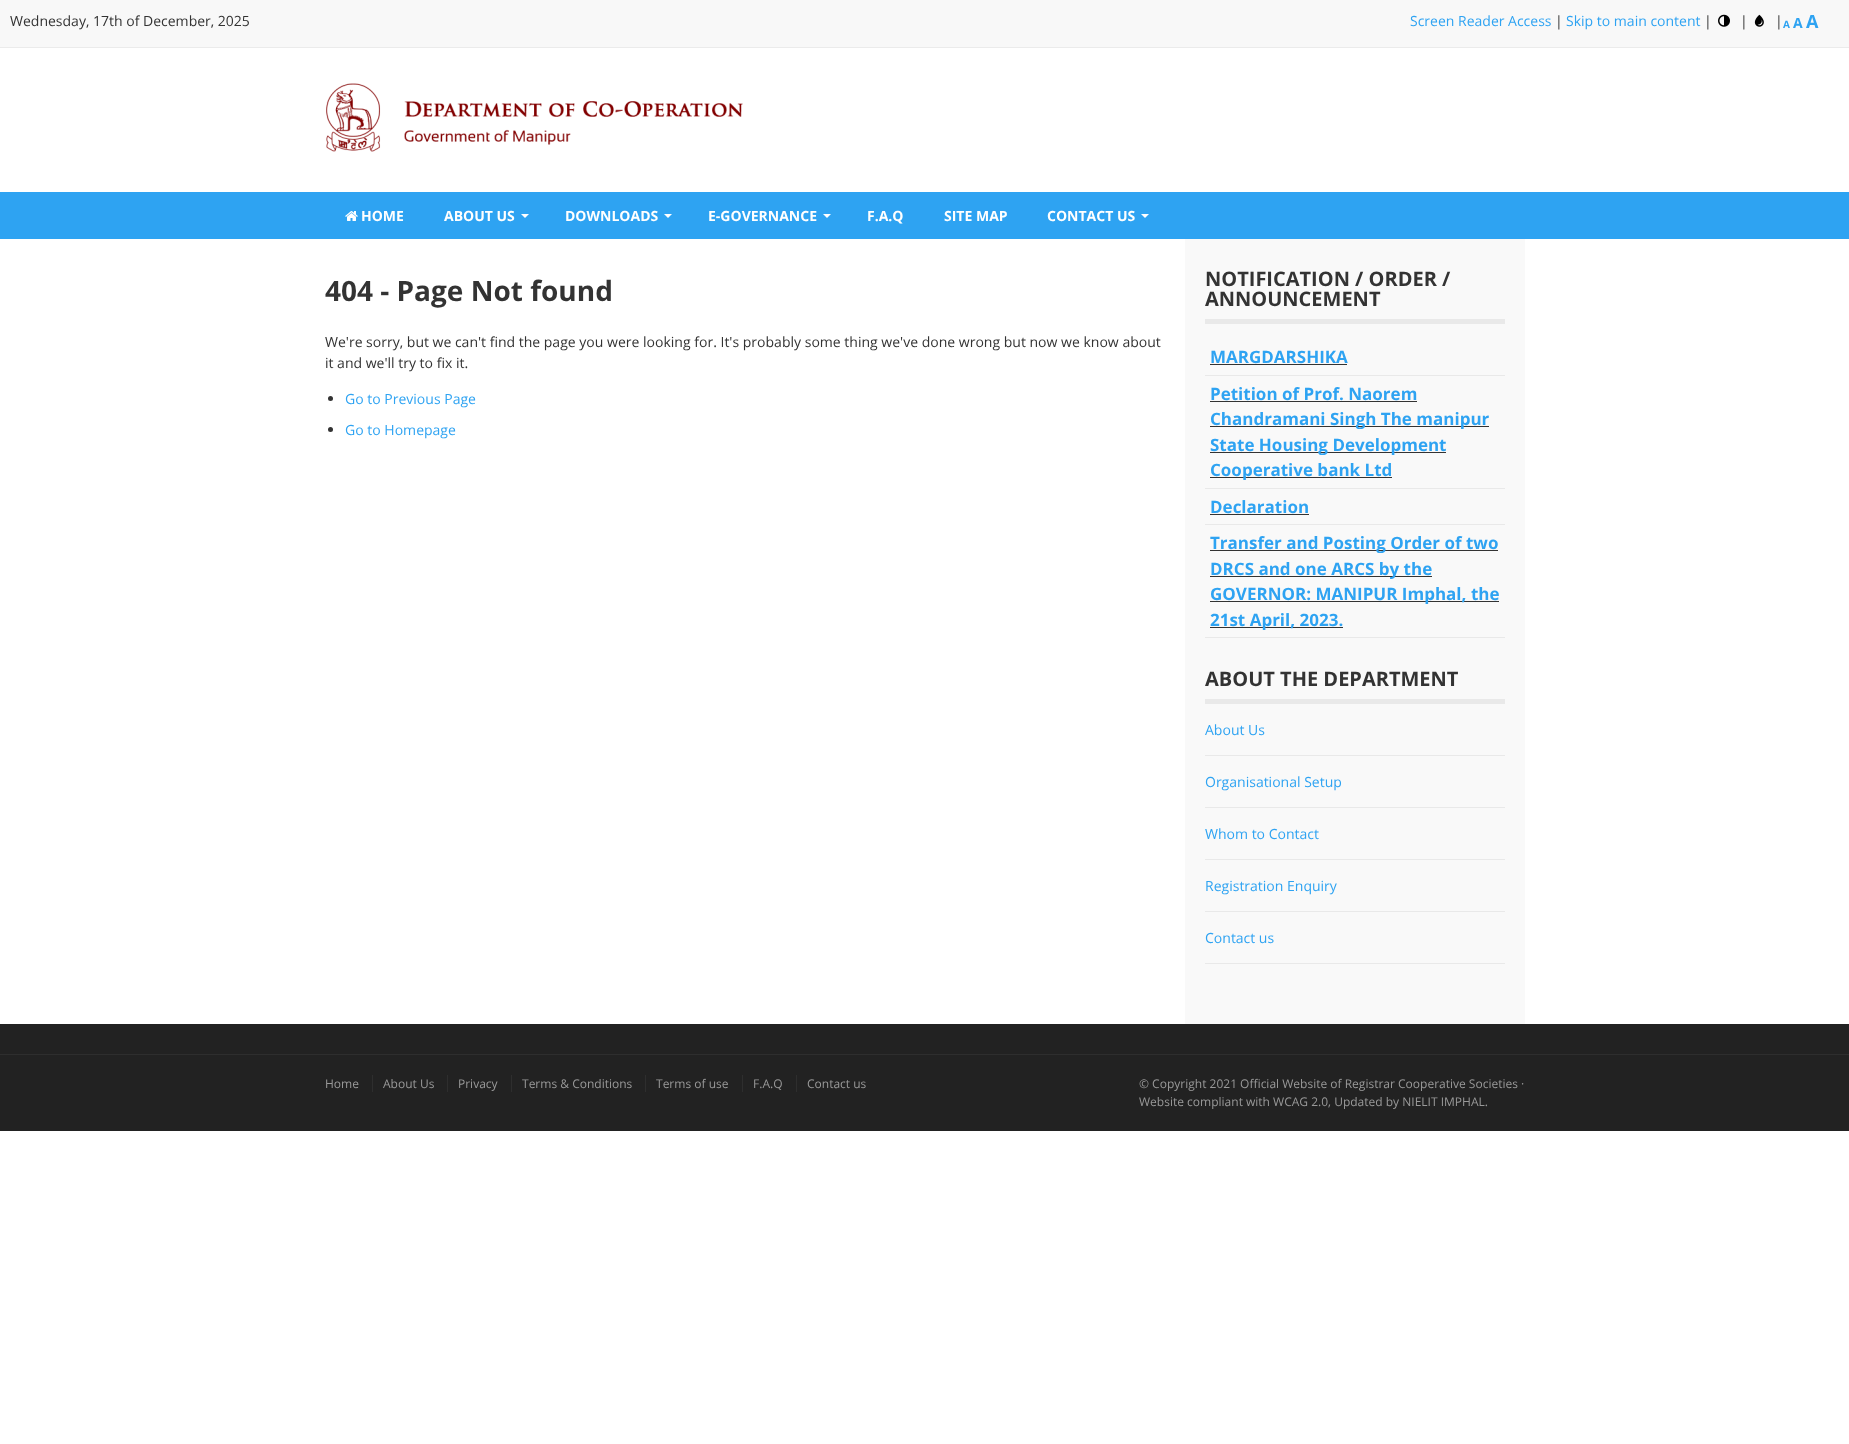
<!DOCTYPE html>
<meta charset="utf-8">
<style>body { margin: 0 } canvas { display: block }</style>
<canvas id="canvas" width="1849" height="1444"></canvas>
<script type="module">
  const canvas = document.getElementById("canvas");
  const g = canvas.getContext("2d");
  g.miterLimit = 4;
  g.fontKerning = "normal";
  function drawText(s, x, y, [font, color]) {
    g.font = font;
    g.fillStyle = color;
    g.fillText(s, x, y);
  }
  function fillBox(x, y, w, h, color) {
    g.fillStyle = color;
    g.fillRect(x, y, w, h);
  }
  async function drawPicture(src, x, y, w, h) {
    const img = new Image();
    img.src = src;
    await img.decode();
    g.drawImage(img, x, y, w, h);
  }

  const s1 = ["14px Open Sans", "#333333"];
  const s2 = ["14px Open Sans", "#2EA3F2"];
  const s3 = ["bold 10px Open Sans", "#2EA3F2"];
  const s4 = ["bold 14px Open Sans", "#2EA3F2"];
  const s5 = ["bold 18px Open Sans", "#2EA3F2"];
  const s6 = ["bold 14px Open Sans", "#FFFFFF"];
  const s7 = ["bold 28px Open Sans", "#333333"];
  const s8 = ["bold 20px Open Sans", "#333333"];
  const s9 = ["bold 17px Open Sans", "#2EA3F2"];
  const s10 = ["12px Open Sans", "#999999"];

  fillBox(0, 0, 1849, 1444, "#FFFFFF");
  fillBox(0, 0, 1849, 47, "#F8F8F8");
  fillBox(0, 47, 1849, 1, "#EBEBEB");
  drawText("Wednesday, 17th of December, 2025", 10, 26, s1);
  drawText("Screen Reader Access", 1410, 26, s2);
  drawText("|", 1555, 26, s1);
  drawText("Skip to main content", 1566, 26, s2);
  drawText("|", 1704, 26, s1);
  await drawPicture("pic1.png", 1718, 14, 12, 13);
  drawText("|", 1740, 26, s1);
  await drawPicture("pic2.png", 1754, 14, 10, 13);
  drawText("|", 1775, 26, s1);
  drawText("A", 1783, 28, s3);
  drawText("A", 1793, 28, s4);
  drawText("A", 1806, 28, s5);
  await drawPicture("pic3.png", 326, 83, 417, 69);
  fillBox(0, 192, 1849, 47, "#2EA3F2");
  await drawPicture("pic4.png", 345, 211, 13, 10);
  drawText("HOME", 361, 221, s6);
  drawText("ABOUT US", 444, 221, s6);
  g.beginPath();
  g.moveTo(521, 214);
  g.lineTo(529, 214);
  g.lineTo(525, 218);
  g.closePath();
  g.fill();
  drawText("DOWNLOADS", 565, 221, s6);
  g.beginPath();
  g.moveTo(664, 214);
  g.lineTo(672, 214);
  g.lineTo(668, 218);
  g.closePath();
  g.fill();
  drawText("E-GOVERNANCE", 708, 221, s6);
  g.beginPath();
  g.moveTo(823, 214);
  g.lineTo(831, 214);
  g.lineTo(827, 218);
  g.closePath();
  g.fill();
  drawText("F.A.Q", 867, 221, s6);
  drawText("SITE MAP", 944, 221, s6);
  drawText("CONTACT US", 1047, 221, s6);
  g.beginPath();
  g.moveTo(1141, 214);
  g.lineTo(1149, 214);
  g.lineTo(1145, 218);
  g.closePath();
  g.fill();
  fillBox(1185, 239, 340, 785, "#F9F9F9");
  drawText("404 - Page Not found", 325, 301, s7);
  drawText("We're sorry, but we can't find the page you were looking for. It's probably some thing we've done wrong but now we know about", 325, 347, s1);
  drawText("it and we'll try to fix it.", 325, 368, s1);
  g.beginPath();
  g.arc(330.5, 398.5, 2.5, 0, Math.PI * 2);
  g.fill();
  drawText("Go to Previous Page", 345, 404, s2);
  g.fillStyle = "#333333";
  g.beginPath();
  g.arc(330.5, 429.5, 2.5, 0, Math.PI * 2);
  g.fill();
  drawText("Go to Homepage", 345, 435, s2);
  fillBox(1205, 319, 300, 5, "#E9E9E9");
  drawText("NOTIFICATION / ORDER /", 1205, 286, s8);
  drawText("ANNOUNCEMENT", 1205, 306, s8);
  fillBox(1205, 375, 300, 1, "#E9E9E9");
  drawText("MARGDARSHIKA", 1210, 363, s9);
  fillBox(1210, 364, 137, 1, "#333333");
  fillBox(1205, 488, 300, 1, "#E9E9E9");
  drawText("Petition of Prof. Naorem", 1210, 400, s9);
  fillBox(1210, 401, 207, 1, "#333333");
  fillBox(1210, 426, 279, 1, "#333333");
  drawText("Chandramani Singh The manipur", 1210, 425, s9);
  fillBox(1210, 452, 236, 1, "#333333");
  drawText("State Housing Development", 1210, 451, s9);
  fillBox(1210, 477, 182, 1, "#333333");
  drawText("Cooperative bank Ltd", 1210, 476, s9);
  fillBox(1205, 524, 300, 1, "#E9E9E9");
  drawText("Declaration", 1210, 513, s9);
  fillBox(1210, 514, 99, 1, "#333333");
  fillBox(1205, 637, 300, 1, "#E9E9E9");
  fillBox(1210, 550, 288, 1, "#333333");
  drawText("Transfer and Posting Order of two", 1210, 549, s9);
  fillBox(1210, 576, 222, 1, "#333333");
  drawText("DRCS and one ARCS by the", 1210, 575, s9);
  fillBox(1210, 601, 289, 1, "#333333");
  drawText("GOVERNOR: MANIPUR Imphal, the", 1210, 600, s9);
  fillBox(1210, 627, 133, 1, "#333333");
  drawText("21st April, 2023.", 1210, 626, s9);
  fillBox(1205, 699, 300, 5, "#E9E9E9");
  drawText("ABOUT THE DEPARTMENT", 1205, 686, s8);
  fillBox(1205, 755, 300, 1, "#E9E9E9");
  drawText("About Us", 1205, 735, s2);
  fillBox(1205, 807, 300, 1, "#E9E9E9");
  drawText("Organisational Setup", 1205, 787, s2);
  fillBox(1205, 859, 300, 1, "#E9E9E9");
  drawText("Whom to Contact", 1205, 839, s2);
  fillBox(1205, 911, 300, 1, "#E9E9E9");
  drawText("Registration Enquiry", 1205, 891, s2);
  fillBox(1205, 963, 300, 1, "#E9E9E9");
  drawText("Contact us", 1205, 943, s2);
  fillBox(0, 1024, 1849, 107, "#222222");
  fillBox(0, 1054, 1849, 1, "#2E2E2E");
  drawText("Home", 325, 1088, s10);
  drawText("About Us", 383, 1088, s10);
  fillBox(372, 1075, 1, 17, "#2E2E2E");
  drawText("Privacy", 458, 1088, s10);
  fillBox(447, 1075, 1, 17, "#2E2E2E");
  drawText("Terms & Conditions", 522, 1088, s10);
  fillBox(511, 1075, 1, 17, "#2E2E2E");
  drawText("Terms of use", 656, 1088, s10);
  fillBox(645, 1075, 1, 17, "#2E2E2E");
  drawText("F.A.Q", 753, 1088, s10);
  fillBox(742, 1075, 1, 17, "#2E2E2E");
  drawText("Contact us", 807, 1088, s10);
  fillBox(796, 1075, 1, 17, "#2E2E2E");
  drawText("© Copyright 2021 Official Website of Registrar Cooperative Societies ·", 1139, 1088, s10);
  drawText("Website compliant with WCAG 2.0, Updated by NIELIT IMPHAL.", 1139, 1106, s10);
</script>
